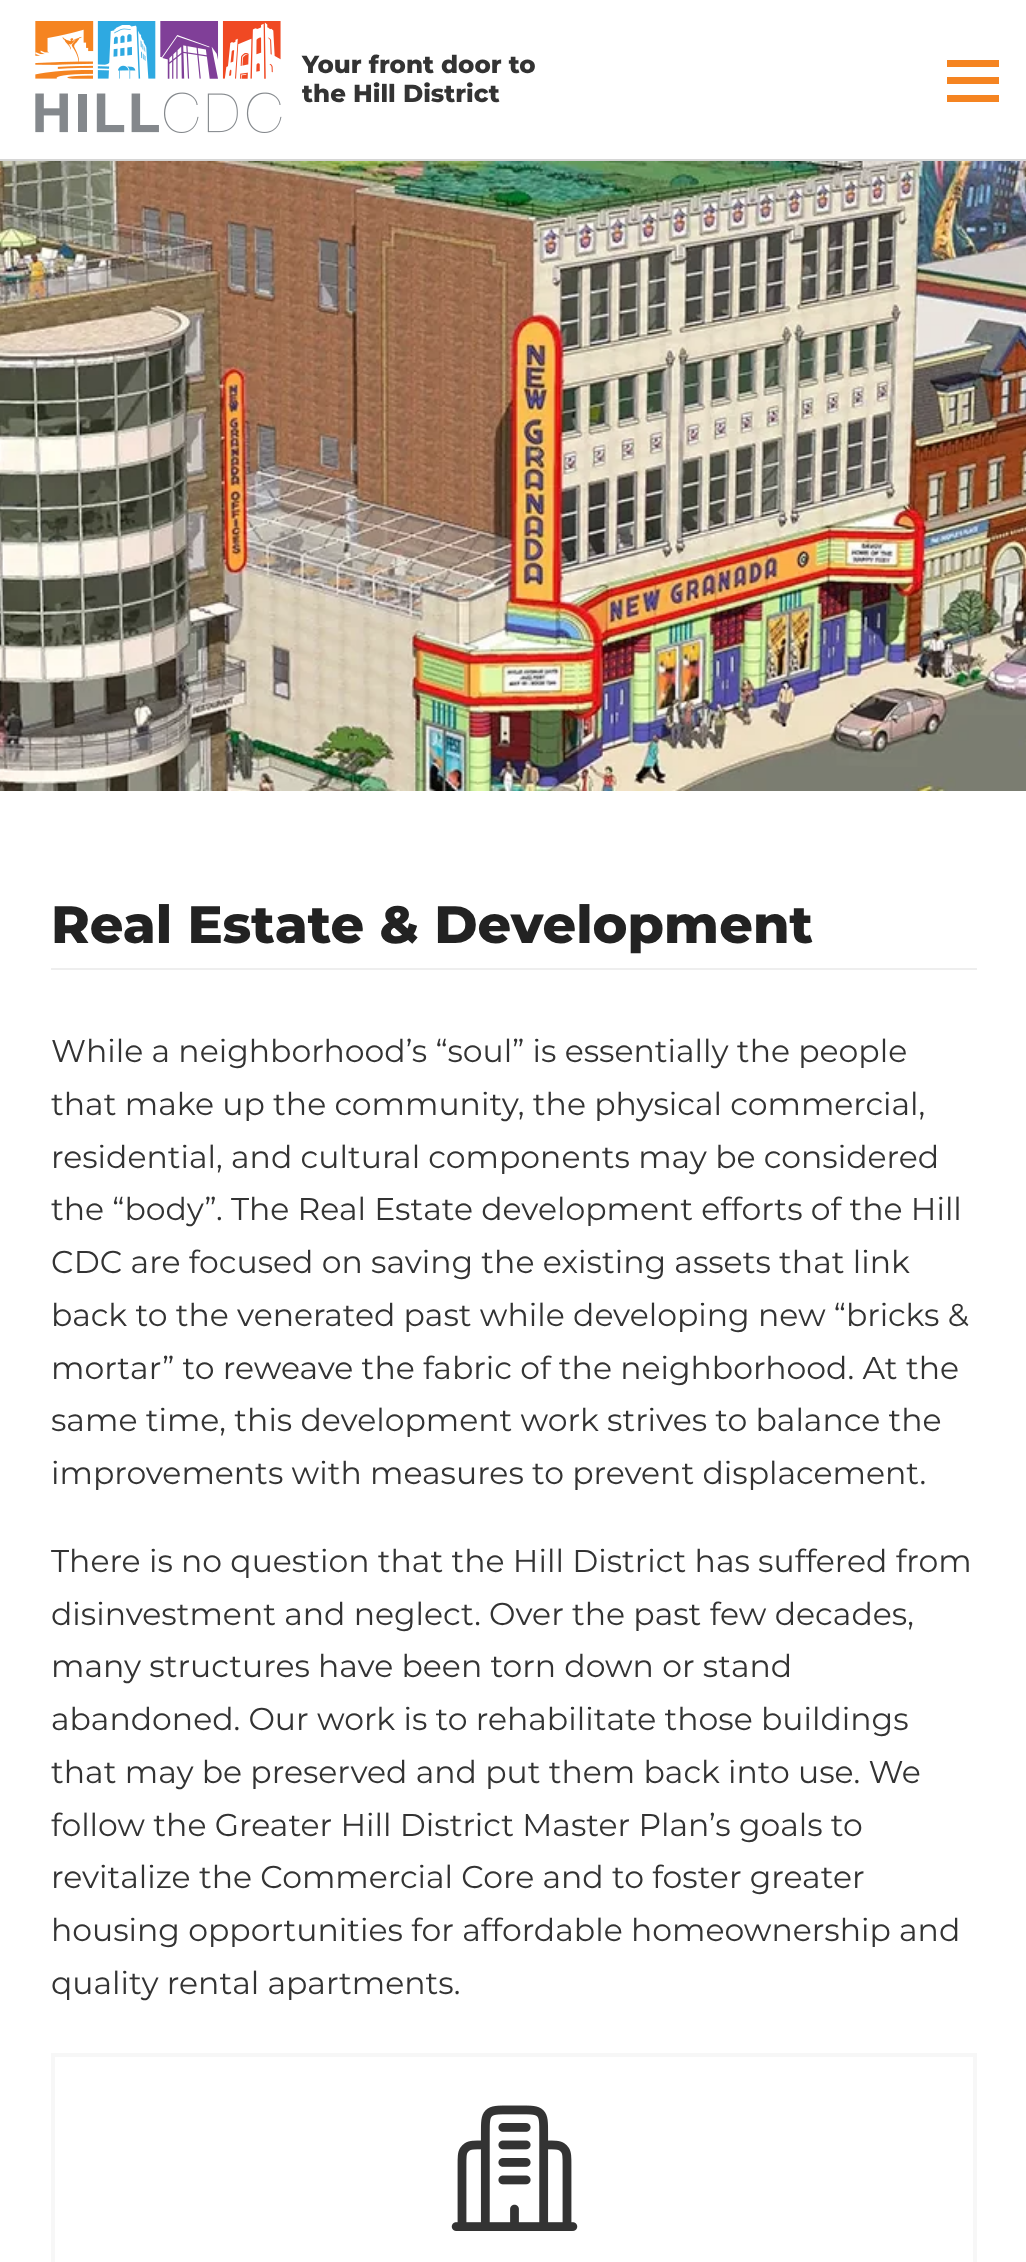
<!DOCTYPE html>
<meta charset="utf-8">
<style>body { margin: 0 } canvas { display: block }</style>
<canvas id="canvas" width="1026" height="2262"></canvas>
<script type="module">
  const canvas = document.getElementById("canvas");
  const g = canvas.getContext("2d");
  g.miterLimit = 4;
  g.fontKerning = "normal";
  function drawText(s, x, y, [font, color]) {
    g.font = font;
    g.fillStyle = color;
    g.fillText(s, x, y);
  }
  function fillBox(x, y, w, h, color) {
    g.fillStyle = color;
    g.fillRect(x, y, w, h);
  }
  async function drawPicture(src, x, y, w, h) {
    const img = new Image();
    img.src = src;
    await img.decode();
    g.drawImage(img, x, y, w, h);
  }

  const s1 = ["100 24.5px Montserrat", "#333333"];
  const s2 = ["100 52.5px Montserrat", "#222222"];
  const s3 = ["100 31.5px 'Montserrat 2'", "#333333"];

  fillBox(0, 0, 1026, 2262, "#FFFFFF");
  fillBox(0, 159, 1026, 2, "#D6D6D6");
  await drawPicture("pic1.png", 35, 21, 247, 112);
  drawText("Your front door to", 302, 73, s1);
  drawText("the Hill District", 302, 102, s1);
  fillBox(947, 77, 52, 7, "#F58421");
  fillBox(947, 60, 52, 7, "#F58421");
  fillBox(947, 95, 52, 7, "#F58421");
  await drawPicture("pic2.png", 0, 161, 1026, 630);
  fillBox(51, 968, 926, 2, "#EEEEEE");
  drawText("Real Estate & Development", 51, 943, s2);
  drawText("While a neighborhood’s “soul” is essentially the people", 51, 1062, s3);
  drawText("that make up the community, the physical commercial,", 51, 1115, s3);
  drawText("residential, and cultural components may be considered", 51, 1168, s3);
  drawText("the “body”. The Real Estate development efforts of the Hill", 51, 1220, s3);
  drawText("CDC are focused on saving the existing assets that link", 51, 1273, s3);
  drawText("back to the venerated past while developing new “bricks &", 51, 1326, s3);
  drawText("mortar” to reweave the fabric of the neighborhood. At the", 51, 1379, s3);
  drawText("same time, this development work strives to balance the", 51, 1431, s3);
  drawText("improvements with measures to prevent displacement.", 51, 1484, s3);
  drawText("There is no question that the Hill District has suffered from", 51, 1572, s3);
  drawText("disinvestment and neglect. Over the past few decades,", 51, 1625, s3);
  drawText("many structures have been torn down or stand", 51, 1677, s3);
  drawText("abandoned. Our work is to rehabilitate those buildings", 51, 1730, s3);
  drawText("that may be preserved and put them back into use. We", 51, 1783, s3);
  drawText("follow the Greater Hill District Master Plan’s goals to", 51, 1836, s3);
  drawText("revitalize the Commercial Core and to foster greater", 51, 1888, s3);
  drawText("housing opportunities for affordable homeownership and", 51, 1941, s3);
  drawText("quality rental apartments.", 51, 1994, s3);
  g.strokeStyle = "#F7F7F7";
  g.lineWidth = 4;
  g.strokeRect(53, 2055, 922, 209);
  await drawPicture("pic3.png", 451, 2105, 127, 126);
</script>
